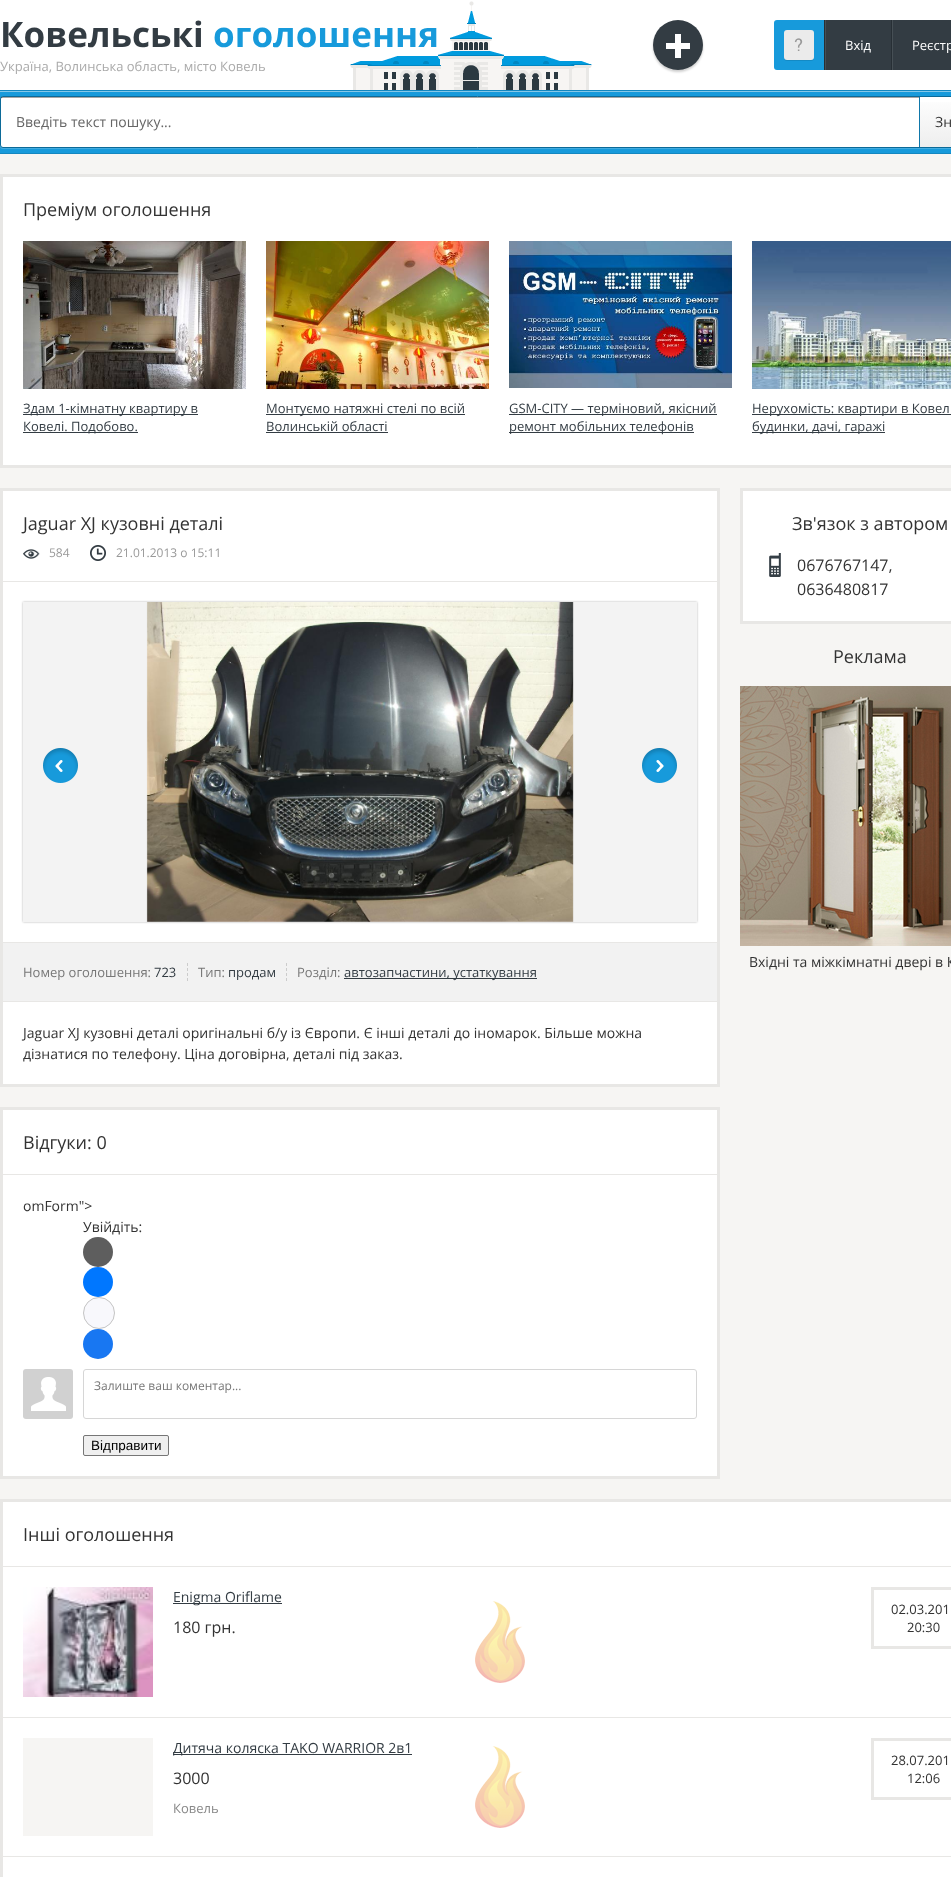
<!DOCTYPE html>
<meta charset="utf-8">
<style>body { margin: 0 } canvas { display: block }</style>
<canvas id="canvas" width="951" height="1877"></canvas>
<script type="module">
  const canvas = document.getElementById("canvas");
  const g = canvas.getContext("2d");
  g.miterLimit = 4;
  g.fontKerning = "normal";
  function drawText(s, x, y, [font, color]) {
    g.font = font;
    g.fillStyle = color;
    g.fillText(s, x, y);
  }
  function fillBox(x, y, w, h, color) {
    g.fillStyle = color;
    g.fillRect(x, y, w, h);
  }
  function fillRounded(x, y, w, h, r, color) {
    g.fillStyle = color;
    g.beginPath();
    g.roundRect(x, y, w, h, r);
    g.fill();
  }
  async function drawPicture(src, x, y, w, h) {
    const img = new Image();
    img.src = src;
    await img.decode();
    g.drawImage(img, x, y, w, h);
  }
  let gradient;

  const s1 = ["bold 35px Open Sans", "#333C43"];
  const s2 = ["bold 35px Open Sans", "#179ADB"];
  const s3 = ["13px Open Sans", "#AAAAAA"];
  const s4 = ["13px Open Sans", "#FFFFFF"];
  const s5 = ["14px Open Sans", "#666666"];
  const s6 = ["14px Open Sans", "#333333"];
  const s7 = ["18px Open Sans", "#333333"];
  const s8 = ["13px Open Sans", "#333C43"];
  const s9 = ["12px Open Sans", "#999999"];
  const s10 = ["13px Open Sans", "#777777"];
  const s11 = ["12px Open Sans", "#777777"];
  const s12 = ["13.5px Liberation Sans", "#000000"];
  const s13 = ["16px Open Sans", "#333333"];
  const s14 = ["14px Open Sans", "#333C43"];
  const s15 = ["13px Open Sans", "#333333"];
  const s16 = ["13px Open Sans", "#888888"];

  fillBox(0, 0, 951, 1877, "#F6F5F3");
  fillBox(0, 0, 951, 90, "#FFFFFF");
  fillBox(0, 90, 951, 1, "#1487C0");
  drawText("Ковельські", 0, 47, s1);
  drawText("оголошення", 213, 47, s2);
  drawText("Україна, Волинська область, місто Ковель", 0, 71, s3);
  await drawPicture("pic1.png", 350, 1, 242, 89);
  g.fillStyle = "rgba(0, 0, 0, 0.2)";
  g.filter = "blur(1px)";
  g.beginPath();
  g.roundRect(653, 22, 50, 50, 25);
  g.fill();
  g.filter = "none";
  g.fillStyle = "#333C43";
  g.beginPath();
  g.arc(678, 45, 25, 0, Math.PI * 2);
  g.fill();
  await drawPicture("pic2.png", 666, 34, 24, 24);
  fillRounded(774, 20, 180, 50, 3, "#179ADB");
  g.fillStyle = "rgba(0, 0, 0, 0.1)";
  g.filter = "blur(0.5px)";
  g.beginPath();
  g.roundRect(784, 31, 30, 30, 3);
  g.fill();
  g.filter = "none";
  await drawPicture("pic3.png", 784, 30, 30, 30);
  fillBox(826, 20, 125, 50, "#333C43");
  fillBox(825, 20, 1, 50, "#464F55");
  fillBox(824, 20, 1, 50, "#272F35");
  drawText("Вхід", 845, 50, s4);
  fillBox(892, 20, 1, 50, "#464F55");
  fillBox(891, 20, 1, 50, "#272F35");
  drawText("Реєстр", 912, 50, s4);
  fillBox(0, 153, 951, 1, "#1487C0");
  fillBox(0, 92, 951, 61, "#179ADB");
  fillBox(0, 91, 951, 1, "#86C8E8");
  g.fillStyle = "rgba(245, 245, 245, 0.2)";
  g.filter = "blur(0.5px)";
  g.beginPath();
  g.roundRect(0, 97, 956, 52, 3);
  g.fill();
  g.filter = "none";
  g.fillStyle = "#FFFFFF";
  g.beginPath();
  g.roundRect(0.5, 96.5, 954, 51, 2.5);
  g.fill();
  g.strokeStyle = "#0C6A98";
  g.stroke();
  fillBox(1, 97, 918, 1, "rgba(0, 0, 0, 0.35)");
  drawText("Введіть текст пошуку...", 16, 127, s5);
  gradient = g.createLinearGradient(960, 97, 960, 147);
  gradient.addColorStop(0, "#FEFEFE");
  gradient.addColorStop(1, "#EEEEEE");
  g.fillStyle = gradient;
  g.fillRect(920, 102, 31, 45);
  fillBox(919, 97, 1, 50, "#0F77AA");
  drawText("Зн", 935, 127, s6);
  g.fillStyle = "#FFFFFF";
  g.beginPath();
  g.rect(1.5, 175.5, 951, 291);
  g.fill();
  g.strokeStyle = "#E8E7E5";
  g.lineWidth = 3;
  g.stroke();
  drawText("Преміум оголошення", 23, 216, s7);
  await drawPicture("pic4.png", 23, 241, 223, 148);
  fillBox(23, 414, 175, 1, "#333C43");
  drawText("Здам 1-кімнатну квартиру в", 23, 413, s8);
  fillBox(23, 432, 115, 1, "#333C43");
  drawText("Ковелі. Подобово.", 23, 431, s8);
  await drawPicture("pic5.png", 266, 241, 223, 148);
  fillBox(266, 414, 199, 1, "#333C43");
  drawText("Монтуємо натяжні стелі по всій", 266, 413, s8);
  drawText("Волинській області", 266, 431, s8);
  fillBox(266, 432, 122, 1, "#333C43");
  await drawPicture("pic6.png", 509, 241, 223, 147);
  fillBox(509, 414, 208, 1, "#333C43");
  drawText("GSM-CITY — терміновий, якісний", 509, 413, s8);
  fillBox(509, 432, 185, 1, "#333C43");
  drawText("ремонт мобільних телефонів", 509, 431, s8);
  await drawPicture("pic7.png", 752, 241, 199, 148);
  fillBox(752, 414, 199, 1, "#333C43");
  drawText("Нерухомість: квартири в Ковел", 752, 413, s8);
  fillBox(752, 432, 133, 1, "#333C43");
  drawText("будинки, дачі, гаражі", 752, 431, s8);
  g.fillStyle = "#FFFFFF";
  g.beginPath();
  g.rect(1.5, 489.5, 717, 596);
  g.fill();
  g.stroke();
  fillBox(3, 581, 714, 1, "#E8E7E5");
  drawText("Jaguar XJ кузовні деталі", 23, 530, s7);
  await drawPicture("pic8.png", 23, 549, 17, 10);
  drawText("584", 49, 557, s9);
  await drawPicture("pic9.png", 90, 545, 16, 16);
  drawText("21.01.2013 о 15:11", 116, 557, s9);
  g.fillStyle = "rgba(0, 0, 0, 0.3)";
  g.filter = "blur(1px)";
  g.beginPath();
  g.rect(23, 602, 674, 320);
  g.fill();
  g.filter = "none";
  fillBox(23, 602, 674, 320, "#F3F3F3");
  await drawPicture("pic10.png", 146, 602, 428, 320);
  await drawPicture("pic11.png", 43, 748, 35, 35);
  await drawPicture("pic12.png", 642, 748, 35, 35);
  fillBox(3, 943, 714, 58, "#F2F2F2");
  fillBox(3, 942, 714, 1, "#E8E7E5");
  fillBox(3, 1001, 714, 1, "#E8E7E5");
  g.beginPath();
  g.moveTo(187.5, 963);
  g.lineTo(187.5, 981);
  g.strokeStyle = "#CCCCCC";
  g.lineWidth = 1;
  g.setLineDash([3, 2]);
  g.stroke();
  drawText("Номер оголошення:", 23, 977, s10);
  drawText("723", 154, 977, s8);
  g.beginPath();
  g.moveTo(286.5, 963);
  g.lineTo(286.5, 981);
  g.stroke();
  drawText("Тип:", 198, 977, s10);
  drawText("продам", 228, 977, s8);
  drawText("Розділ:", 297, 977, s10);
  fillBox(344, 978, 193, 1, "#333C43");
  drawText("автозапчастини, устаткування", 344, 977, s8);
  drawText("Jaguar XJ кузовні деталі оригінальні б/у із Європи. Є інші деталі до іномарок. Більше можна", 23, 1038, s6);
  drawText("дізнатися по телефону. Ціна договірна, деталі під заказ.", 23, 1059, s6);
  g.fillStyle = "#FFFFFF";
  g.beginPath();
  g.rect(1.5, 1108.5, 717, 369);
  g.fill();
  g.strokeStyle = "#E8E7E5";
  g.lineWidth = 3;
  g.setLineDash([]);
  g.stroke();
  fillBox(3, 1174, 714, 1, "#E8E7E5");
  drawText("Відгуки: 0", 23, 1149, s7);
  drawText("omForm\">", 23, 1211, s6);
  drawText("Увійдіть:", 83, 1232, s6);
  g.fillStyle = "#5E5E5E";
  g.beginPath();
  g.arc(98, 1252, 15, 0, Math.PI * 2);
  g.fill();
  g.fillStyle = "#0077FF";
  g.beginPath();
  g.arc(98, 1282, 15, 0, Math.PI * 2);
  g.fill();
  g.fillStyle = "#F8F8FC";
  g.beginPath();
  g.arc(99, 1313, 15.5, 0, Math.PI * 2);
  g.fill();
  g.strokeStyle = "#C4C4C4";
  g.lineWidth = 1;
  g.stroke();
  g.fillStyle = "#1877F2";
  g.beginPath();
  g.arc(98, 1344, 15, 0, Math.PI * 2);
  g.fill();
  await drawPicture("pic13.png", 23, 1369, 50, 50);
  g.beginPath();
  g.roundRect(83.5, 1369.5, 613, 49, 2.5);
  g.strokeStyle = "#D6D6D6";
  g.stroke();
  drawText("Залиште ваш коментар...", 94, 1390, s11);
  g.fillStyle = "#EFEFEF";
  g.beginPath();
  g.roundRect(83.5, 1435.5, 85, 20, 1.5);
  g.fill();
  g.strokeStyle = "#767676";
  g.stroke();
  drawText("Відправити", 91, 1450, s12);
  g.fillStyle = "#FFFFFF";
  g.beginPath();
  g.rect(741.5, 489.5, 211, 133);
  g.fill();
  g.strokeStyle = "#E8E7E5";
  g.lineWidth = 3;
  g.stroke();
  drawText("Зв'язок з автором", 792, 530, s7);
  await drawPicture("pic14.png", 769, 553, 12, 24);
  drawText("0676767147,", 797, 571, s13);
  drawText("0636480817", 797, 595, s13);
  drawText("Реклама", 833, 663, s7);
  await drawPicture("pic15.png", 740, 686, 211, 260);
  drawText("Вхідні та міжкімнатні двері в К", 749, 967, s6);
  g.fillStyle = "#FFFFFF";
  g.beginPath();
  g.rect(1.5, 1500.5, 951, 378);
  g.fill();
  g.stroke();
  drawText("Інші оголошення", 23, 1541, s7);
  await drawPicture("pic16.png", 475, 1601, 50, 82);
  fillBox(3, 1566, 948, 1, "#E8E7E5");
  await drawPicture("pic17.png", 23, 1587, 130, 110);
  fillBox(173, 1603, 109, 1, "#333C43");
  drawText("Enigma Oriflame", 173, 1602, s14);
  drawText("180 грн.", 173, 1633, s13);
  g.strokeRect(872.5, 1588.5, 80, 59);
  drawText("02.03.201", 891, 1614, s15);
  drawText("20:30", 907, 1632, s15);
  await drawPicture("pic16.png", 475, 1746, 50, 82);
  fillBox(3, 1717, 948, 1, "#E8E7E5");
  fillBox(23, 1738, 130, 98, "#F6F5F3");
  fillBox(173, 1754, 239, 1, "#333C43");
  drawText("Дитяча коляска TAKO WARRIOR 2в1", 173, 1753, s14);
  drawText("3000", 173, 1784, s13);
  g.strokeRect(872.5, 1739.5, 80, 59);
  drawText("28.07.201", 891, 1765, s15);
  drawText("12:06", 907, 1783, s15);
  drawText("Ковель", 173, 1813, s16);
  fillBox(3, 1856, 948, 1, "#E8E7E5");
</script>
